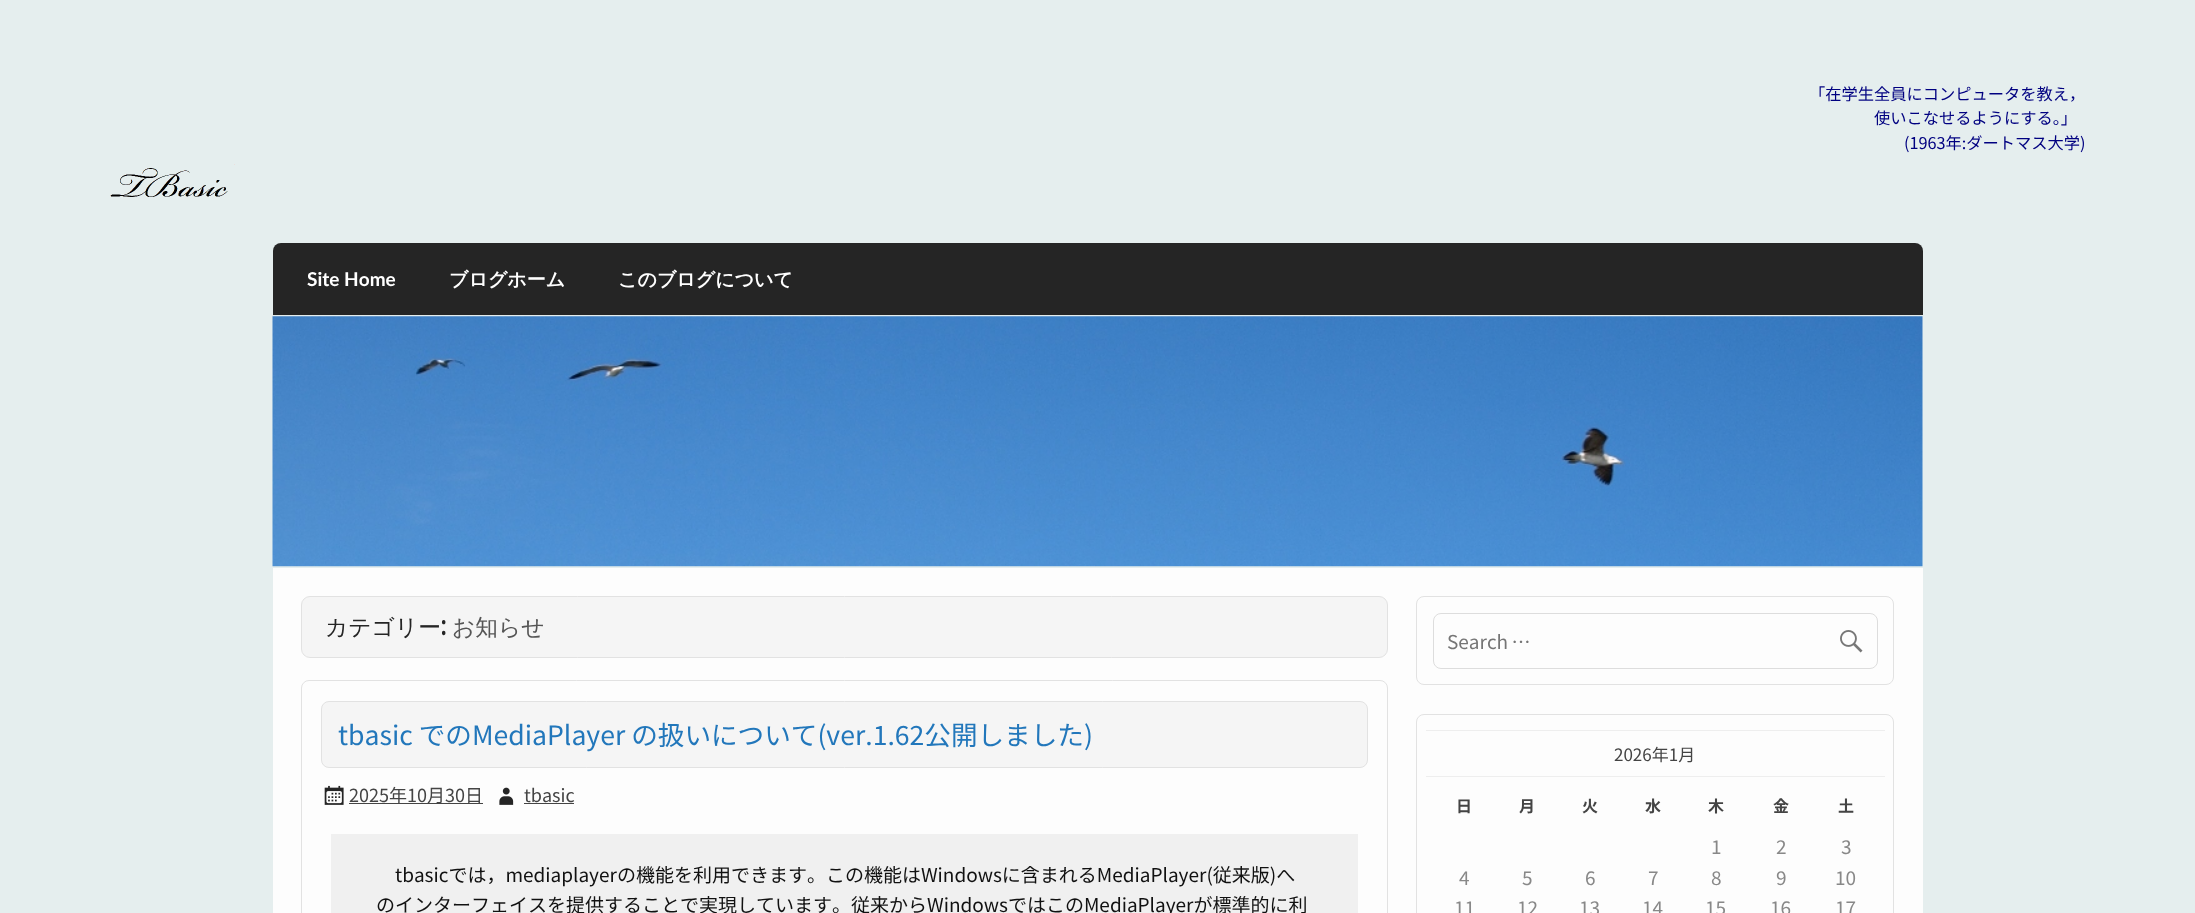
<!DOCTYPE html>
<meta charset="utf-8">
<style>body { margin: 0 } canvas { display: block }</style>
<canvas id="canvas" width="2195" height="913"></canvas>
<script type="module">
  const canvas = document.getElementById("canvas");
  const g = canvas.getContext("2d");
  g.miterLimit = 4;
  g.fontKerning = "none";
  function drawText(s, x, y, [font, color]) {
    g.font = font;
    g.fillStyle = color;
    g.fillText(s, x, y);
  }
  function fillBox(x, y, w, h, color) {
    g.fillStyle = color;
    g.fillRect(x, y, w, h);
  }
  async function drawPicture(src, x, y, w, h) {
    const img = new Image();
    img.src = src;
    await img.decode();
    g.drawImage(img, x, y, w, h);
  }

  const s1 = ["16.25px Noto Sans JP", "#000080"];
  const s2 = ["bold 19px Lato", "#FFFFFF"];
  const s3 = ["bold 19px WenQuanYi Zen Hei", "#FFFFFF"];
  const s4 = ["500 22.75px WenQuanYi Zen Hei", "#252525"];
  const s5 = ["22.75px Fjalla One", "#252525"];
  const s6 = ["500 22.75px WenQuanYi Zen Hei", "#555555"];
  const s7 = ["26.6px Noto Sans JP", "#2277BB"];
  const s8 = ["18px Noto Sans JP", "#444444"];
  const s9 = ["19px Noto Sans JP", "#111111"];
  const s10 = ["19px Noto Sans JP", "#757575"];
  const s11 = ["17px Noto Sans JP", "#444444"];
  const s12 = ["bold 16px Noto Sans JP", "#444444"];
  const s13 = ["19px Noto Sans JP", "#888888"];

  fillBox(0, 0, 2195, 913, "#E5EEEE");
  drawText("「在学生全員にコンピュータを教え，", 1809, 100, s1);
  drawText("使いこなせるようにする。」", 1874, 124, s1);
  drawText("(1963年:ダートマス大学)", 1904, 149, s1);
  await drawPicture("pic1.png", 110, 164, 125, 33);
  g.fillStyle = "#252525";
  g.beginPath();
  g.roundRect(273, 243, 1650, 72, [8, 8, 0, 0]);
  g.fill();
  drawText("Site Home", 307, 286, s2);
  drawText("ブログホーム", 449, 286, s3);
  drawText("このブログについて", 618, 286, s3);
  await drawPicture("pic2.png", 272, 316, 1651, 251);
  fillBox(273, 568, 1650, 345, "#FDFDFD");
  g.fillStyle = "#F5F5F5";
  g.beginPath();
  g.roundRect(301.5, 596.5, 1086, 61, 8.5);
  g.fill();
  g.strokeStyle = "#E2E2E2";
  g.stroke();
  drawText("カテゴリー", 325, 635, s4);
  drawText(":", 441, 635, s5);
  drawText("お知らせ", 452, 635, s6);
  g.beginPath();
  g.roundRect(301.5, 680.5, 1086, 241, 7.5);
  g.stroke();
  g.fillStyle = "#F5F5F5";
  g.beginPath();
  g.roundRect(321.5, 701.5, 1046, 66, 7.5);
  g.fill();
  g.stroke();
  drawText("tbasic でのMediaPlayer の扱いについて(ver.1.62公開しました)", 338, 745, s7);
  await drawPicture("pic3.png", 324, 785, 20, 20);
  fillBox(349, 803, 134, 1, "#444444");
  drawText("2025年10月30日", 349, 802, s8);
  await drawPicture("pic4.png", 499, 787, 15, 18);
  drawText("tbasic", 524, 802, s8);
  fillBox(524, 803, 50, 1, "#444444");
  fillBox(331, 834, 1027, 79, "#F0F0F0");
  drawText("tbasicでは，mediaplayerの機能を利用できます。この機能はWindowsに含まれるMediaPlayer(従来版)へ", 395, 882, s9);
  drawText("のインターフェイスを提供することで実現しています", 376, 912, s9);
  drawText("。従来からWindowsではこのMediaPlayerが標準的に利", 832, 912, s9);
  g.beginPath();
  g.roundRect(1416.5, 596.5, 477, 88, 7.5);
  g.stroke();
  g.beginPath();
  g.roundRect(1433.5, 613.5, 444, 55, 7.5);
  g.strokeStyle = "#DDDDDD";
  g.stroke();
  g.wordSpacing = "-1px";
  drawText("Search …", 1447, 649, s10);
  await drawPicture("pic5.png", 1840, 630, 23, 23);
  g.beginPath();
  g.roundRect(1416.5, 714.5, 477, 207, 7.5);
  g.strokeStyle = "#E2E2E2";
  g.stroke();
  fillBox(1426, 730, 459, 1, "#EEEEEE");
  fillBox(1426, 776, 459, 1, "#EEEEEE");
  g.wordSpacing = "0px";
  drawText("2026年1月", 1614, 761, s11);
  drawText("日", 1456, 812, s12);
  drawText("月", 1519, 812, s12);
  drawText("火", 1582, 812, s12);
  drawText("水", 1645, 812, s12);
  drawText("木", 1708, 812, s12);
  drawText("金", 1773, 812, s12);
  drawText("土", 1838, 812, s12);
  drawText("1", 1711, 854, s13);
  drawText("2", 1776, 854, s13);
  drawText("3", 1841, 854, s13);
  drawText("4", 1459, 885, s13);
  drawText("5", 1522, 885, s13);
  drawText("6", 1585, 885, s13);
  drawText("7", 1648, 885, s13);
  drawText("8", 1711, 885, s13);
  drawText("9", 1776, 885, s13);
  drawText("10", 1835, 885, s13);
  drawText("11", 1454, 915, s13);
  drawText("12", 1517, 915, s13);
  drawText("13", 1579, 915, s13);
  drawText("14", 1642, 915, s13);
  drawText("15", 1705, 915, s13);
  drawText("16", 1770, 915, s13);
  drawText("17", 1835, 915, s13);
</script>
